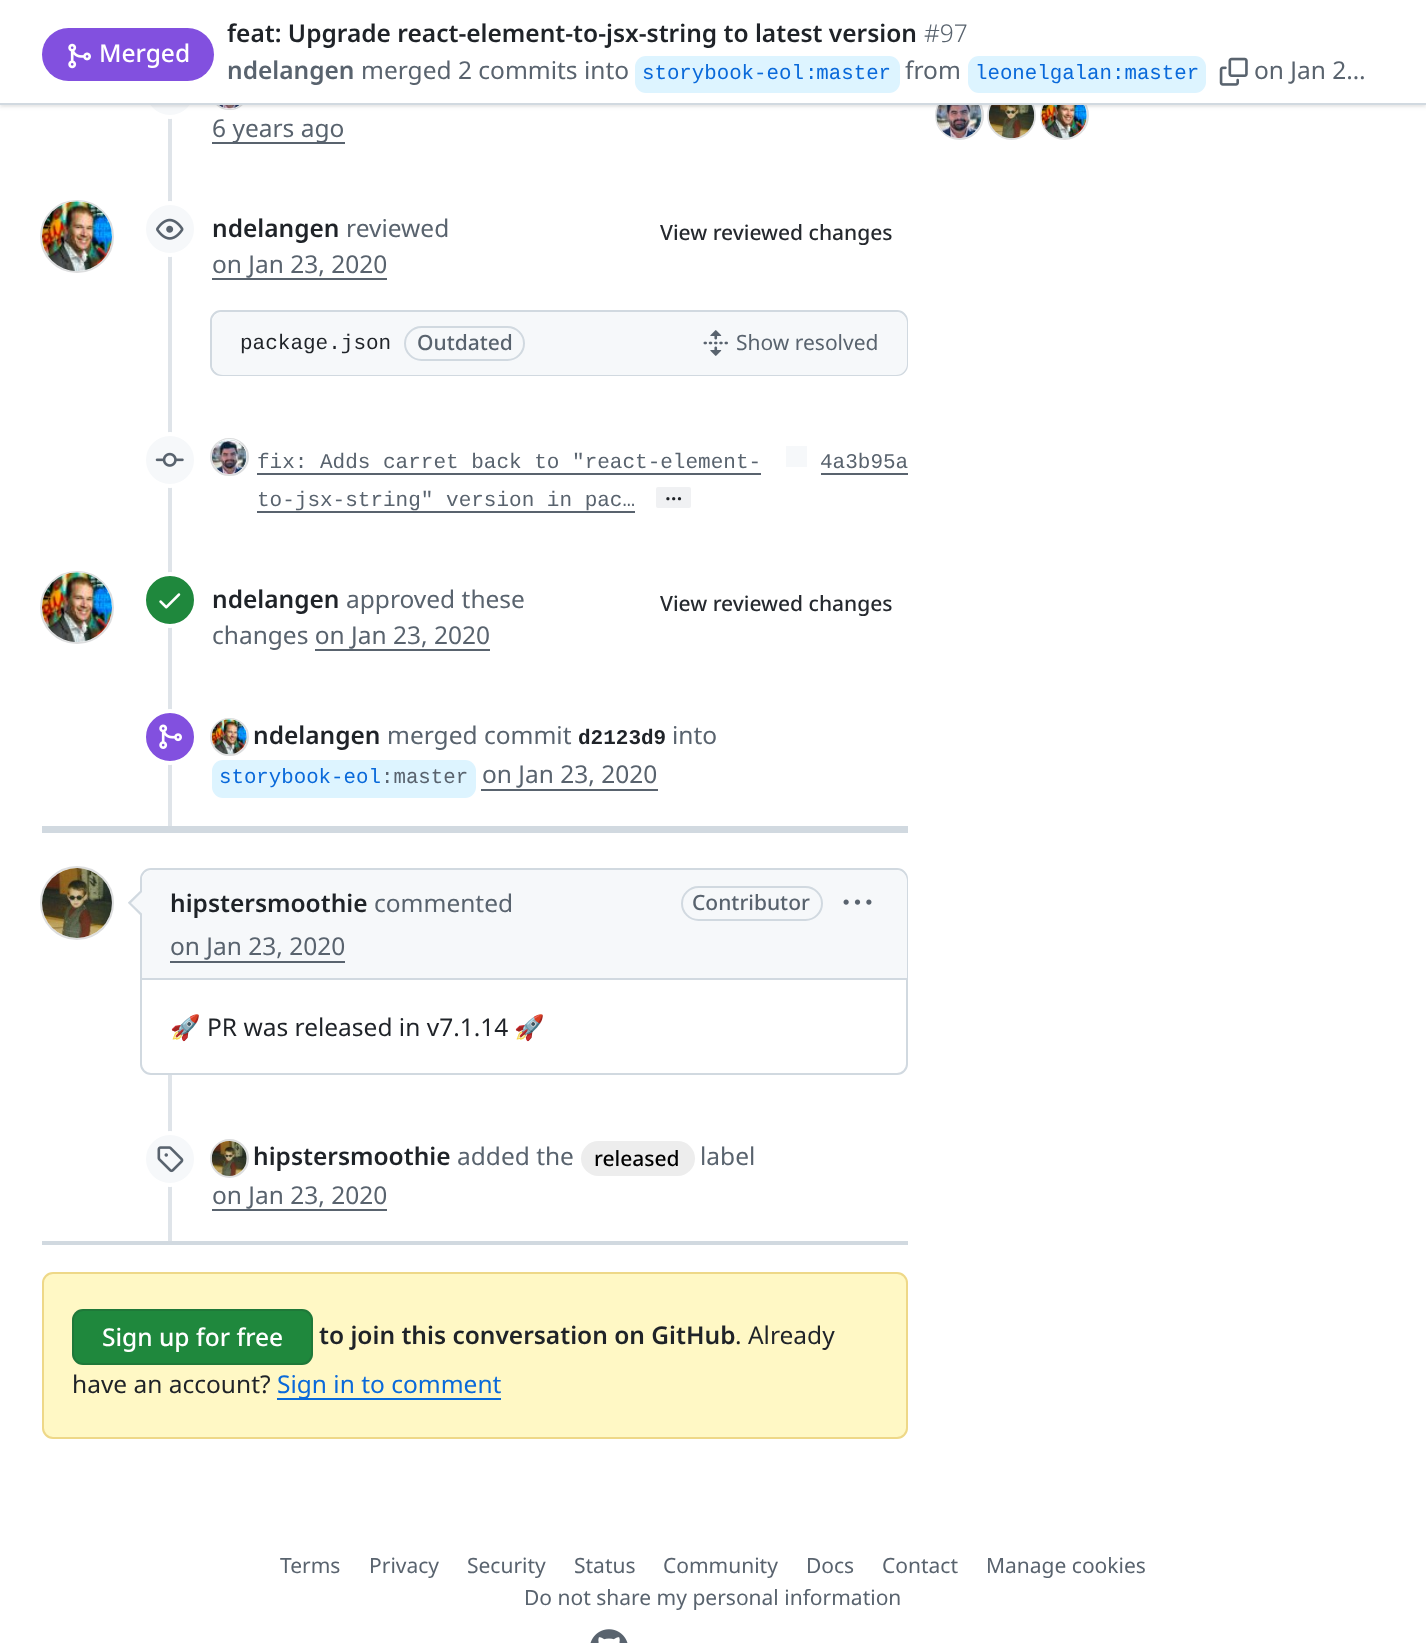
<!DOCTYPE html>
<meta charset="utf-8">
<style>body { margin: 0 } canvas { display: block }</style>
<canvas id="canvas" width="1426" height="1643"></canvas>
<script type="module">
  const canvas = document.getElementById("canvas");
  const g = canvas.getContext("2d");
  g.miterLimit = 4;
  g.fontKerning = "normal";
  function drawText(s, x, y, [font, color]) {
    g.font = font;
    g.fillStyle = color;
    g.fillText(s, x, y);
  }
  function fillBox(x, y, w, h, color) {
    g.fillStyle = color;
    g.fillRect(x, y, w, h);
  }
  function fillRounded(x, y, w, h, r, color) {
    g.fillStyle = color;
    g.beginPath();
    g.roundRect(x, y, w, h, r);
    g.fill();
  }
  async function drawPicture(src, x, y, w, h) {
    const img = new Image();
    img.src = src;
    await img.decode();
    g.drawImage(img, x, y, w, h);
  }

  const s1 = ["500 24.5px Noto Sans", "#FFFFFF"];
  const s2 = ["600 24.5px Noto Sans", "#1F2328"];
  const s3 = ["300 24.5px Noto Sans", "#59636E"];
  const s4 = ["600 24.5px Noto Sans", "#59636E"];
  const s5 = ["24.5px Noto Sans", "#59636E"];
  const s6 = ["20.75px Liberation Mono", "#0969DA"];
  const s7 = ["500 21px Noto Sans", "#25292E"];
  const s8 = ["21px Liberation Mono", "#1F2328"];
  const s9 = ["500 21px Noto Sans", "#59636E"];
  const s10 = ["21px Noto Sans", "#59636E"];
  const s11 = ["21px Liberation Mono", "#59636E"];
  const s12 = ["600 21px Noto Sans", "#1F2328"];
  const s13 = ["bold 21px Liberation Mono", "#1F2328"];
  const s14 = ["20.75px Liberation Mono", "#59636E"];
  const s15 = ["24.5px Noto Color Emoji", "#1F2328"];
  const s16 = ["24.5px Noto Sans", "#1F2328"];
  const s17 = ["500 21px Noto Sans", "#000000"];
  const s18 = ["24.5px Noto Sans", "#0969DA"];

  fillBox(0, 0, 1426, 1643, "#FFFFFF");
  fillBox(168, 118, 4, 708, "#DFE4E9");
  g.fillStyle = "#F6F8FA";
  g.beginPath();
  g.arc(170, 91, 26, 0, Math.PI * 2);
  g.fill();
  g.strokeStyle = "#FFFFFF";
  g.lineWidth = 4;
  g.stroke();
  g.beginPath();
  g.roundRect(211, 73, 37, 36, 18);
  g.strokeStyle = "#DDDEDF";
  g.lineWidth = 2;
  g.stroke();
  g.fillStyle = "#FFFFFF";
  g.beginPath();
  g.arc(229.5, 91.5, 17.5, 0, Math.PI * 2);
  g.fill();
  await drawPicture("pic3.png", 219, 105, 21, 4);
  g.beginPath();
  g.arc(959.5, 115.5, 23.5, 0, Math.PI * 2);
  g.stroke();
  fillRounded(936, 93, 46, 45, 22.5, "#FFFFFF");
  await drawPicture("pic17.png", 936, 105, 46, 34);
  g.beginPath();
  g.arc(1011.5, 115.5, 23.5, 0, Math.PI * 2);
  g.stroke();
  await drawPicture("pic18.png", 988, 105, 47, 34);
  g.beginPath();
  g.arc(1064.5, 115.5, 23.5, 0, Math.PI * 2);
  g.stroke();
  fillRounded(1041, 93, 46, 45, 22.5, "#FFFFFF");
  await drawPicture("pic19.png", 1041, 105, 46, 33);
  g.fillStyle = "rgba(31, 35, 40, 0.06)";
  g.filter = "blur(2.5px)";
  g.beginPath();
  g.rect(0, 2, 1426, 105);
  g.fill();
  g.filter = "none";
  g.filter = "blur(1px)";
  g.beginPath();
  g.rect(0, 2, 1426, 105);
  g.fill();
  g.filter = "none";
  fillBox(0, 0, 1426, 103, "#FFFFFF");
  fillBox(0, 103, 1426, 2, "#D1D9E0");
  fillRounded(42, 28, 172, 53, 26.5, "#8250DF");
  await drawPicture("pic1.png", 68, 43, 23, 26);
  drawText("Merged", 99, 62, s1);
  drawText("feat: Upgrade react-element-to-jsx-string to latest version", 227, 42, s2);
  drawText("#97", 924, 42, s3);
  drawText("ndelangen", 227, 79, s4);
  drawText("merged 2 commits into", 361, 79, s5);
  fillRounded(635, 56, 265, 37, 11, "#DDF4FF");
  drawText(":", 805, 79, s6);
  drawText("storybook-eol master", 642, 79, s6);
  drawText("from", 905, 79, s5);
  fillRounded(968, 56, 238, 37, 11, "#DDF4FF");
  drawText(":", 1112, 79, s6);
  drawText("leonelgalan master", 975, 79, s6);
  await drawPicture("pic2.png", 1219, 57, 29, 29);
  drawText("on Jan 2…", 1254, 79, s5);
  fillBox(212, 142, 133, 2, "#59636E");
  drawText("6 years ago", 212, 137, s5);
  g.beginPath();
  g.roundRect(41, 201, 72, 71, 35.5);
  g.stroke();
  g.fillStyle = "#FFFFFF";
  g.beginPath();
  g.arc(77, 236, 35, 0, Math.PI * 2);
  g.fill();
  await drawPicture("pic4.png", 42, 201, 70, 70);
  g.fillStyle = "#F6F8FA";
  g.beginPath();
  g.arc(170, 229, 26, 0, Math.PI * 2);
  g.fill();
  g.strokeStyle = "#FFFFFF";
  g.lineWidth = 4;
  g.stroke();
  await drawPicture("pic5.png", 156, 218, 28, 22);
  drawText("ndelangen", 212, 237, s2);
  drawText("reviewed", 346, 237, s5);
  drawText("on Jan 23, 2020", 212, 273, s5);
  fillBox(212, 278, 175, 2, "#59636E");
  drawText("View reviewed changes", 660, 240, s7);
  g.beginPath();
  g.roundRect(211, 311, 696, 64, 10);
  g.strokeStyle = "#D1D9E0";
  g.lineWidth = 2;
  g.stroke();
  fillRounded(212, 312, 695, 63, 11, "#F6F8FA");
  drawText("package.json", 240, 349, s8);
  g.beginPath();
  g.roundRect(405, 327, 119, 33, 16.5);
  g.stroke();
  drawText("Outdated", 417, 350, s9);
  await drawPicture("pic6.png", 703, 330, 25, 26);
  drawText("Show resolved", 736, 350, s10);
  g.fillStyle = "#F6F8FA";
  g.beginPath();
  g.arc(170, 460, 26, 0, Math.PI * 2);
  g.fill();
  g.strokeStyle = "#FFFFFF";
  g.lineWidth = 4;
  g.stroke();
  await drawPicture("pic7.png", 155, 452, 29, 15);
  g.beginPath();
  g.roundRect(211, 439, 37, 36, 18);
  g.strokeStyle = "#DDDEDF";
  g.lineWidth = 2;
  g.stroke();
  g.fillStyle = "#FFFFFF";
  g.beginPath();
  g.arc(229.5, 456.5, 17.5, 0, Math.PI * 2);
  g.fill();
  await drawPicture("pic8.png", 212, 439, 35, 35);
  drawText("fix: Adds carret back to \"react-element-", 257, 468, s11);
  fillBox(257, 473, 504, 2, "#59636E");
  drawText("to-jsx-string\" version in pac…", 257, 506, s11);
  fillBox(257, 511, 378, 2, "#59636E");
  fillRounded(656, 487, 35, 21, 2, "#F0F1F3");
  drawText("…", 665, 500, s12);
  fillBox(786, 446, 21, 21, "#F6F8FA");
  drawText("4a3b95a", 820, 468, s11);
  fillBox(821, 473, 87, 2, "#59636E");
  g.beginPath();
  g.roundRect(41, 572, 72, 71, 35.5);
  g.stroke();
  g.fillStyle = "#FFFFFF";
  g.beginPath();
  g.arc(77, 607, 35, 0, Math.PI * 2);
  g.fill();
  await drawPicture("pic9.png", 42, 572, 70, 70);
  g.fillStyle = "#1F883D";
  g.beginPath();
  g.arc(170, 600, 26, 0, Math.PI * 2);
  g.fill();
  g.strokeStyle = "#FFFFFF";
  g.lineWidth = 4;
  g.stroke();
  await drawPicture("pic10.png", 159, 593, 22, 16);
  drawText("ndelangen", 212, 608, s2);
  drawText("approved these", 346, 608, s5);
  drawText("changes on Jan 23, 2020", 212, 644, s5);
  fillBox(315, 649, 175, 2, "#59636E");
  drawText("View reviewed changes", 660, 611, s7);
  g.fillStyle = "#8250DF";
  g.beginPath();
  g.arc(170, 737, 26, 0, Math.PI * 2);
  g.fill();
  g.stroke();
  await drawPicture("pic11.png", 159, 724, 23, 25);
  g.beginPath();
  g.roundRect(211, 719, 37, 36, 18);
  g.strokeStyle = "#DDDEDF";
  g.lineWidth = 2;
  g.stroke();
  g.fillStyle = "#FFFFFF";
  g.beginPath();
  g.arc(229.5, 736.5, 17.5, 0, Math.PI * 2);
  g.fill();
  await drawPicture("pic12.png", 211, 719, 36, 35);
  drawText("ndelangen", 253, 744, s2);
  drawText("merged commit", 387, 744, s5);
  drawText("d2123d9", 578, 744, s13);
  drawText("into", 672, 744, s5);
  fillRounded(212, 760, 264, 38, 11, "#DDF4FF");
  drawText("storybook-eol", 219, 783, s6);
  drawText(":master", 381, 783, s14);
  drawText("on Jan 23, 2020", 482, 783, s5);
  fillBox(481, 789, 177, 2, "#59636E");
  fillBox(42, 826, 866, 7, "#D1D9E0");
  g.beginPath();
  g.arc(77, 903, 36, 0, Math.PI * 2);
  g.stroke();
  g.fillStyle = "#FFFFFF";
  g.beginPath();
  g.arc(77, 903, 35, 0, Math.PI * 2);
  g.fill();
  await drawPicture("pic13.png", 42, 868, 70, 70);
  g.beginPath();
  g.roundRect(141, 869, 766, 205, 10);
  g.strokeStyle = "#D1D9E0";
  g.stroke();
  g.fillStyle = "#D1D9E0";
  g.beginPath();
  g.moveTo(142, 889);
  g.lineTo(142, 917);
  g.lineTo(128, 903);
  g.lineTo(128, 902.5);
  g.closePath();
  g.fill();
  g.fillStyle = "#F6F8FA";
  g.beginPath();
  g.roundRect(142, 870, 765, 110, [11, 11, 0, 0]);
  g.fill();
  g.beginPath();
  g.moveTo(131, 903);
  g.lineTo(145, 916.5);
  g.lineTo(145, 889);
  g.closePath();
  g.fill();
  fillBox(142, 978, 765, 2, "#D1D9E0");
  drawText("hipstersmoothie", 170, 912, s2);
  drawText("commented", 374, 912, s5);
  drawText("on Jan 23, 2020", 170, 955, s5);
  fillBox(170, 961, 175, 2, "#59636E");
  g.beginPath();
  g.roundRect(682, 887, 140, 33, 16.5);
  g.stroke();
  drawText("Contributor", 692, 910, s9);
  await drawPicture("pic14.png", 843, 899, 29, 6);
  drawText("🚀", 170, 1036, s15);
  drawText("PR was released in v7.1.14", 207, 1036, s16);
  drawText("🚀", 514, 1036, s15);
  fillBox(168, 1075, 4, 166, "#DFE4E9");
  g.fillStyle = "#F6F8FA";
  g.beginPath();
  g.arc(170, 1159, 26, 0, Math.PI * 2);
  g.fill();
  g.strokeStyle = "#FFFFFF";
  g.lineWidth = 4;
  g.stroke();
  await drawPicture("pic15.png", 157, 1146, 27, 27);
  g.beginPath();
  g.arc(229.5, 1158.5, 18.5, 0, Math.PI * 2);
  g.strokeStyle = "#DDDEDF";
  g.lineWidth = 2;
  g.stroke();
  g.fillStyle = "#FFFFFF";
  g.beginPath();
  g.arc(229.5, 1158.5, 17.5, 0, Math.PI * 2);
  g.fill();
  await drawPicture("pic16.png", 211, 1141, 36, 35);
  drawText("hipstersmoothie", 253, 1165, s2);
  drawText("added the", 457, 1165, s5);
  fillRounded(581, 1141, 114, 35, 17.5, "#EDEDED");
  drawText("released", 594, 1166, s17);
  drawText("label", 700, 1165, s5);
  drawText("on Jan 23, 2020", 212, 1204, s5);
  fillBox(212, 1209, 175, 2, "#59636E");
  fillBox(42, 1241, 866, 4, "#D1D9E0");
  fillRounded(42, 1272, 866, 167, 11, "#FFF8C5");
  g.beginPath();
  g.roundRect(43, 1273, 864, 165, 10);
  g.strokeStyle = "rgba(212, 167, 44, 0.4)";
  g.stroke();
  fillRounded(72, 1309, 241, 56, 11, "#1F883D");
  g.beginPath();
  g.roundRect(73, 1310, 239, 54, 10);
  g.strokeStyle = "rgba(31, 35, 40, 0.15)";
  g.stroke();
  drawText("Sign up for free", 102, 1346, s1);
  drawText("to join this conversation on GitHub", 319, 1344, s2);
  drawText(". Already", 735, 1344, s16);
  drawText("have an account?", 72, 1393, s16);
  fillBox(277, 1398, 224, 2, "#0969DA");
  drawText("Sign in to comment", 277, 1393, s18);
  drawText("Terms", 280, 1573, s10);
  drawText("Privacy", 369, 1573, s10);
  drawText("Security", 467, 1573, s10);
  drawText("Status", 574, 1573, s10);
  drawText("Community", 663, 1573, s10);
  drawText("Docs", 806, 1573, s10);
  drawText("Contact", 882, 1573, s10);
  drawText("Manage cookies", 986, 1573, s10);
  drawText("Do not share my personal information", 524, 1605, s10);
  await drawPicture("pic20.png", 590, 1629, 38, 14);
</script>
